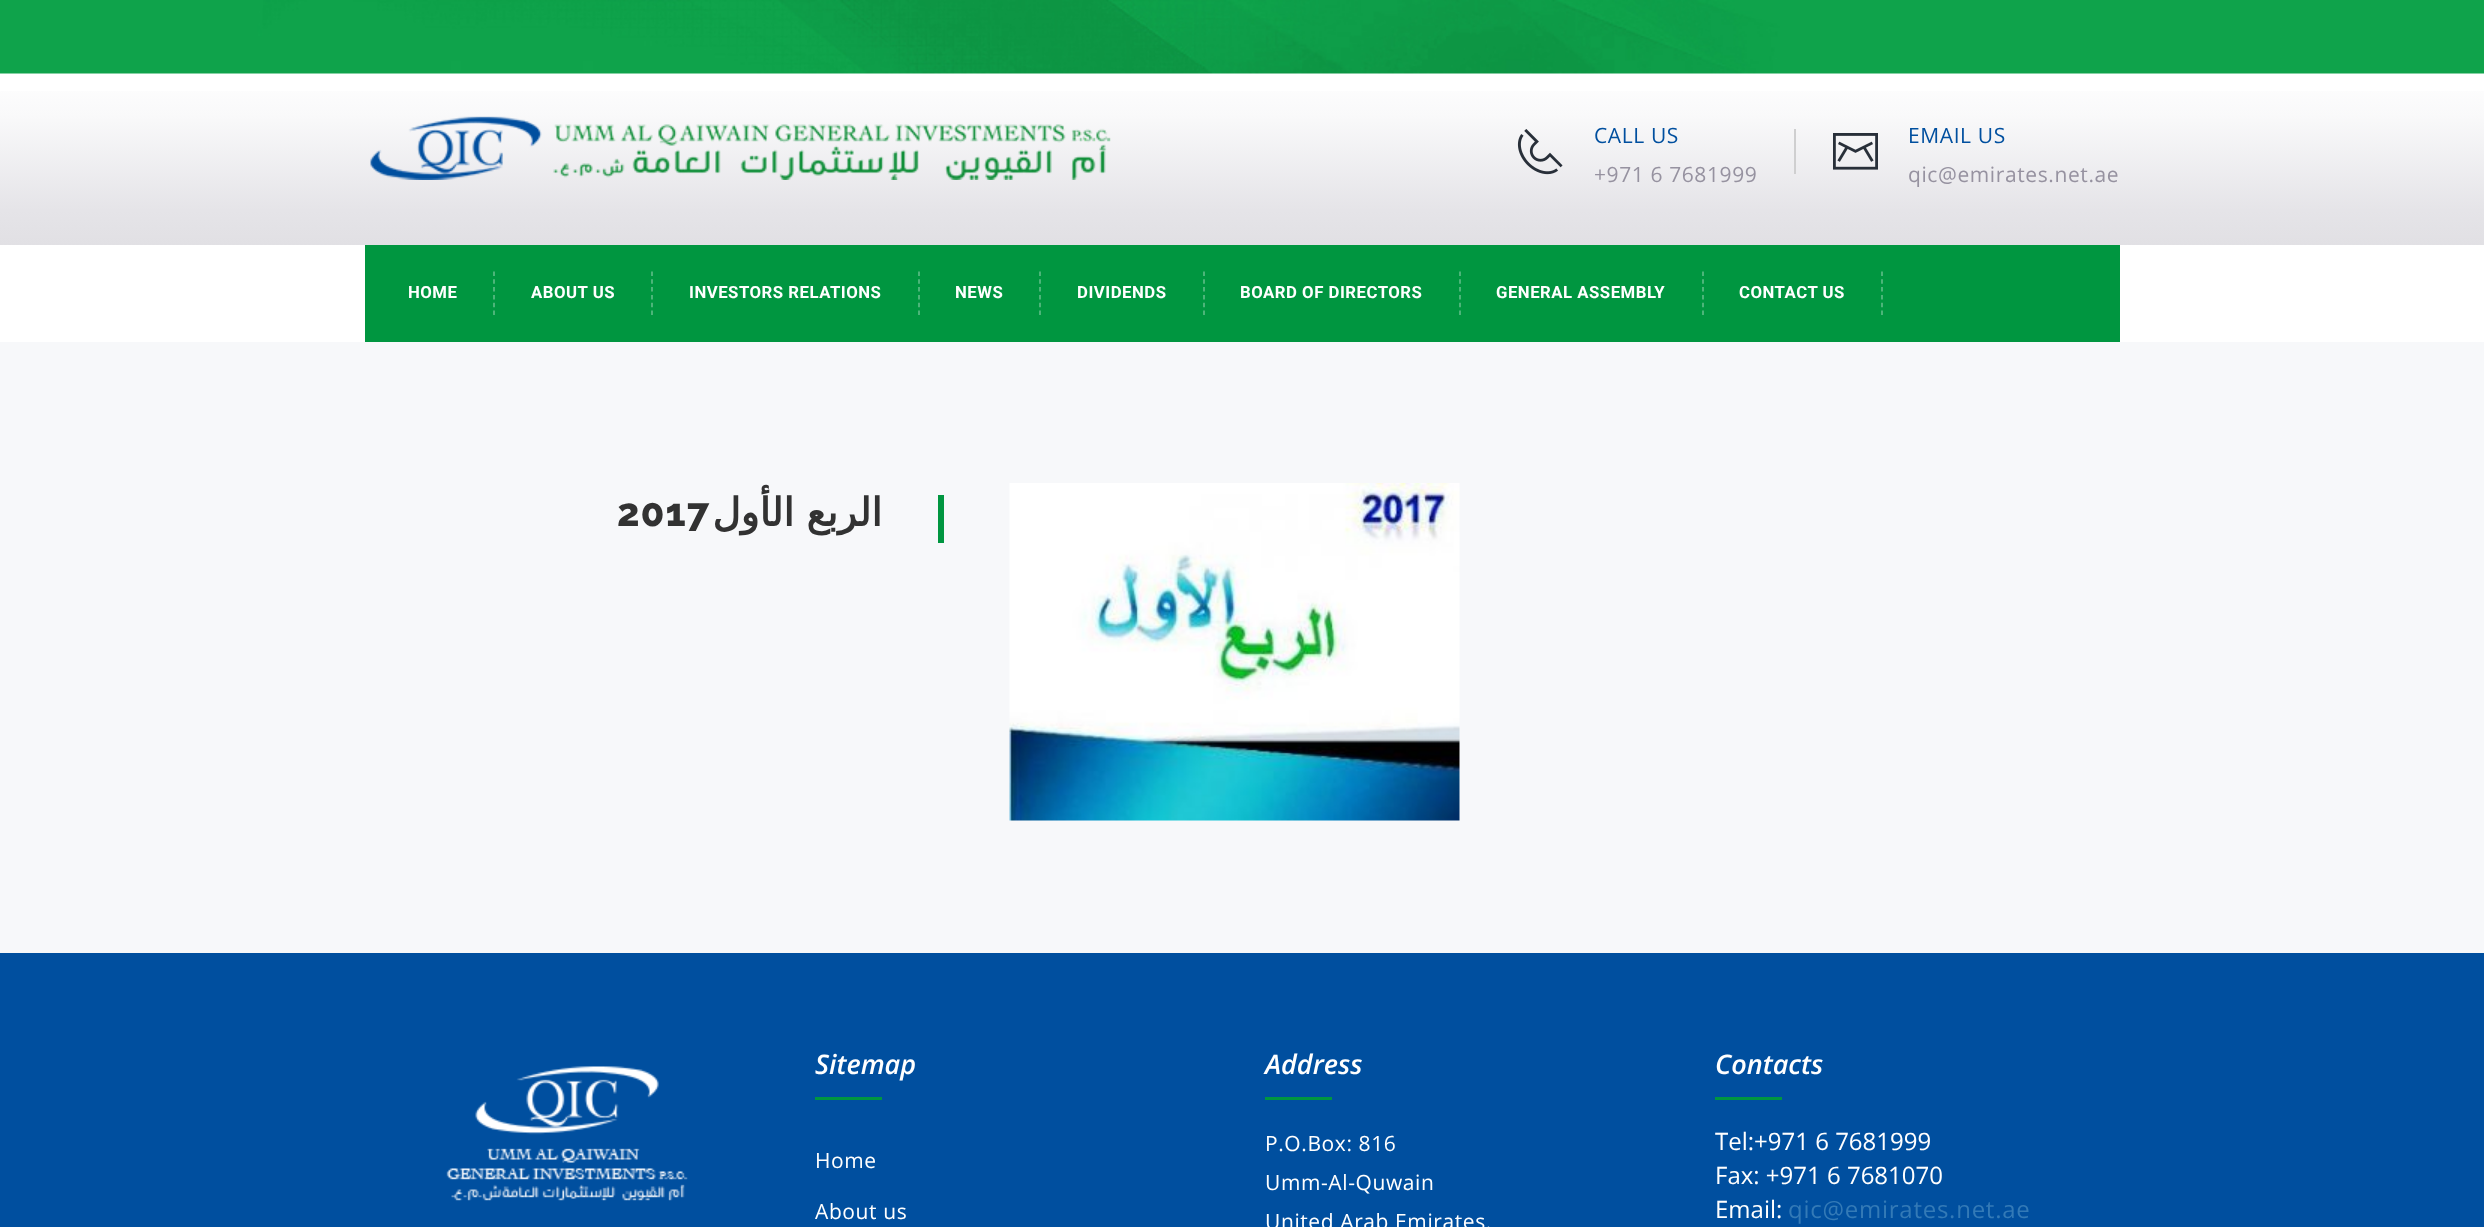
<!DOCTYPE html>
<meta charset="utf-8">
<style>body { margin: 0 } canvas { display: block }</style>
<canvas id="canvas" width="2484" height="1227"></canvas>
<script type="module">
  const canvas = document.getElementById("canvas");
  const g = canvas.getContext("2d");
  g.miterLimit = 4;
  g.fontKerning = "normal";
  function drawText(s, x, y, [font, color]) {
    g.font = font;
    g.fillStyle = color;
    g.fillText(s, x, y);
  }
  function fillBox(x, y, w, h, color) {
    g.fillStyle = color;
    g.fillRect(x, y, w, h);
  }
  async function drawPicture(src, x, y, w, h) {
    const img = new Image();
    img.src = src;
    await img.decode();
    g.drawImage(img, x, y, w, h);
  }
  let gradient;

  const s1 = ["21px Open Sans", "#004F9F"];
  const s2 = ["21px Open Sans", "#9692A0"];
  const s3 = ["bold 16.75px Roboto", "#FFFFFF"];
  const s4 = ["800 39px Raleway", "#323232"];
  const s5 = ["bold 39px DejaVu Sans", "#323232"];
  const s6 = ["italic 600 27px Open Sans", "#FFFFFF"];
  const s7 = ["21px Open Sans", "#FFFFFF"];
  const s8 = ["24px Open Sans", "#FFFFFF"];
  const s9 = ["24px Open Sans", "#337AB7"];

  fillBox(0, 0, 2484, 1227, "#FFFFFF");
  await drawPicture("pic1.png", 0, 0, 2484, 74);
  gradient = g.createLinearGradient(1242, 73, 1242, 245);
  gradient.addColorStop(0, "#FFFFFF");
  gradient.addColorStop(0.25, "#F9F9FA");
  gradient.addColorStop(0.8, "#E5E4E8");
  gradient.addColorStop(1, "#E1E0E4");
  g.fillStyle = gradient;
  g.fillRect(0, 91, 2484, 154);
  await drawPicture("pic2.png", 370, 116, 741, 64);
  await drawPicture("pic3.png", 1517, 129, 46, 46);
  g.letterSpacing = "0.6px";
  drawText("CALL US", 1594, 143, s1);
  drawText("+971 6 7681999", 1594, 182, s2);
  fillBox(1794, 129, 2, 45, "#CFCFD0");
  await drawPicture("pic4.png", 1833, 133, 45, 37);
  drawText("EMAIL US", 1908, 143, s1);
  drawText("qic@emirates.net.ae", 1908, 182, s2);
  fillBox(365, 245, 1755, 97, "#009640");
  g.beginPath();
  g.moveTo(494, 271.5);
  g.lineTo(494, 315);
  g.strokeStyle = "#66C08C";
  g.lineWidth = 1.5;
  g.setLineDash([4.5, 3.3]);
  g.stroke();
  g.letterSpacing = "0.5px";
  drawText("HOME", 408, 298, s3);
  g.beginPath();
  g.moveTo(652, 271.5);
  g.lineTo(652, 315);
  g.stroke();
  drawText("ABOUT US", 531, 298, s3);
  g.beginPath();
  g.moveTo(919, 271.5);
  g.lineTo(919, 315);
  g.stroke();
  drawText("INVESTORS RELATIONS", 689, 298, s3);
  g.beginPath();
  g.moveTo(1040, 271.5);
  g.lineTo(1040, 315);
  g.stroke();
  drawText("NEWS", 955, 298, s3);
  g.beginPath();
  g.moveTo(1204, 271.5);
  g.lineTo(1204, 315);
  g.stroke();
  drawText("DIVIDENDS", 1077, 298, s3);
  g.beginPath();
  g.moveTo(1460, 271.5);
  g.lineTo(1460, 315);
  g.stroke();
  drawText("BOARD OF DIRECTORS", 1240, 298, s3);
  g.beginPath();
  g.moveTo(1703, 271.5);
  g.lineTo(1703, 315);
  g.stroke();
  drawText("GENERAL ASSEMBLY", 1496, 298, s3);
  g.beginPath();
  g.moveTo(1882, 271.5);
  g.lineTo(1882, 315);
  g.stroke();
  drawText("CONTACT US", 1739, 298, s3);
  fillBox(0, 342, 2484, 611, "#F7F8FA");
  g.letterSpacing = "1px";
  drawText("2017", 617, 526, s4);
  g.direction = "rtl";
  drawText("الأول", 794, 526, s5);
  drawText("الربع", 882, 526, s5);
  fillBox(938, 495, 6, 48, "#009640");
  await drawPicture("pic5.png", 1009, 483, 451, 338);
  fillBox(0, 953, 2484, 274, "#004F9F");
  await drawPicture("pic6.png", 446, 1066, 242, 135);
  g.letterSpacing = "0px";
  g.direction = "ltr";
  drawText("Sitemap", 815, 1074, s6);
  fillBox(815, 1097, 67, 3, "#009640");
  g.letterSpacing = "0.6px";
  drawText("Home", 815, 1168, s7);
  drawText("About us", 815, 1219, s7);
  g.letterSpacing = "0px";
  drawText("Address", 1265, 1074, s6);
  fillBox(1265, 1097, 67, 3, "#009640");
  g.letterSpacing = "0.6px";
  drawText("P.O.Box: 816", 1265, 1151, s7);
  drawText("Umm-Al-Quwain", 1265, 1190, s7);
  drawText("United Arab Emirates.", 1265, 1229, s7);
  g.letterSpacing = "0px";
  drawText("Contacts", 1715, 1074, s6);
  fillBox(1715, 1097, 67, 3, "#009640");
  drawText("Tel:+971 6 7681999", 1715, 1150, s8);
  drawText("Fax: +971 6 7681070", 1715, 1184, s8);
  drawText("Email:", 1715, 1218, s8);
  g.letterSpacing = "0.75px";
  drawText("qic@emirates.net.ae", 1788, 1218, s9);
</script>
